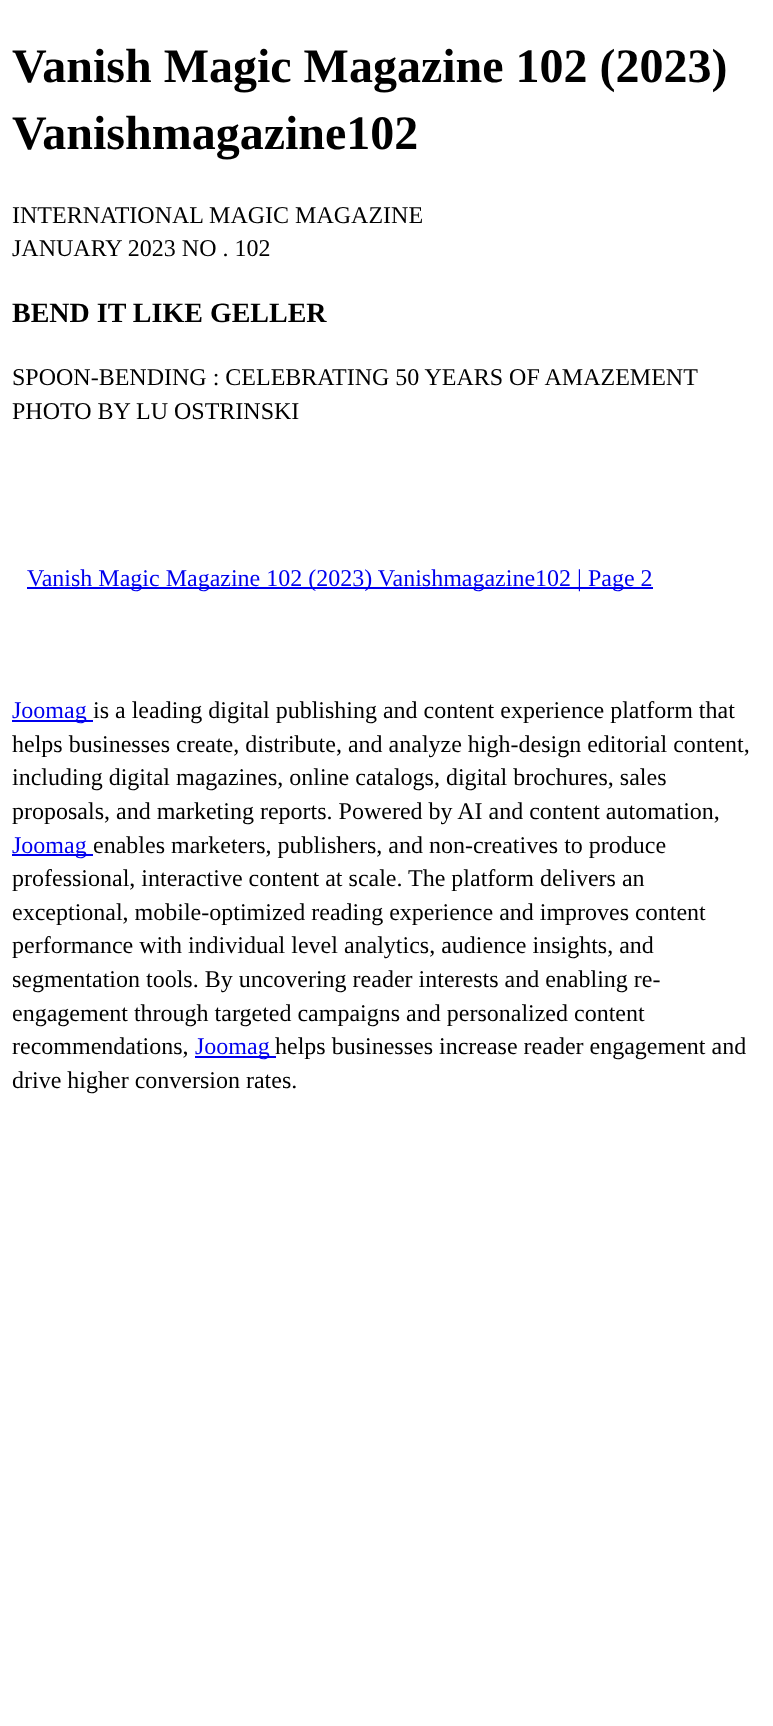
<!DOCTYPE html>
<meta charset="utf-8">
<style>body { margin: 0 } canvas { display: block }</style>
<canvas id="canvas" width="773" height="1726"></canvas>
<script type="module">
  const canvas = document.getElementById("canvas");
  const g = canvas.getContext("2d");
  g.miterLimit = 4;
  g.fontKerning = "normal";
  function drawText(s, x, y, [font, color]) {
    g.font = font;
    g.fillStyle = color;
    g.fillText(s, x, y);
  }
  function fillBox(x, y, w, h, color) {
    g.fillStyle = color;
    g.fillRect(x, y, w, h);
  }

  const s1 = ["bold 48px Liberation Serif", "#000000"];
  const s2 = ["24px Liberation Serif", "#000000"];
  const s3 = ["bold 28px Liberation Serif", "#000000"];
  const s4 = ["24px Liberation Serif", "#0000EE"];

  fillBox(0, 0, 773, 1726, "#FFFFFF");
  drawText("Vanish Magic Magazine 102 (2023)", 12, 82, s1);
  drawText("Vanishmagazine102", 12, 149, s1);
  drawText("INTERNATIONAL MAGIC MAGAZINE", 12, 223, s2);
  drawText("JANUARY 2023 NO . 102", 12, 256, s2);
  drawText("BEND IT LIKE GELLER", 12, 322, s3);
  drawText("SPOON-BENDING : CELEBRATING 50 YEARS OF AMAZEMENT", 12, 385, s2);
  drawText("PHOTO BY LU OSTRINSKI", 12, 419, s2);
  fillBox(27, 587, 626, 2, "#0000EE");
  drawText("Vanish Magic Magazine 102 (2023) Vanishmagazine102 | Page 2", 27, 586, s4);
  fillBox(12, 720, 81, 2, "#0000EE");
  drawText("Joomag", 12, 718, s4);
  drawText("is a leading digital publishing and content experience platform that", 93, 718, s2);
  drawText("helps businesses create, distribute, and analyze high-design editorial content,", 12, 752, s2);
  drawText("including digital magazines, online catalogs, digital brochures, sales", 12, 785, s2);
  drawText("proposals, and marketing reports. Powered by AI and content automation,", 12, 819, s2);
  fillBox(12, 854, 81, 2, "#0000EE");
  drawText("Joomag", 12, 853, s4);
  drawText("enables marketers, publishers, and non-creatives to produce", 93, 853, s2);
  drawText("professional, interactive content at scale.", 12, 886, s2);
  drawText("The platform delivers an", 408, 886, s2);
  drawText("exceptional, mobile-optimized reading experience and improves content", 12, 920, s2);
  drawText("performance with individual level analytics, audience insights, and", 12, 953, s2);
  drawText("segmentation tools. By uncovering reader interests and enabling re-", 12, 987, s2);
  drawText("engagement through targeted campaigns and personalized content", 12, 1021, s2);
  drawText("recommendations,", 12, 1054, s2);
  fillBox(195, 1056, 81, 2, "#0000EE");
  drawText("Joomag", 195, 1054, s4);
  drawText("helps businesses increase reader engagement and", 275, 1054, s2);
  drawText("drive higher conversion rates.", 12, 1088, s2);
</script>
